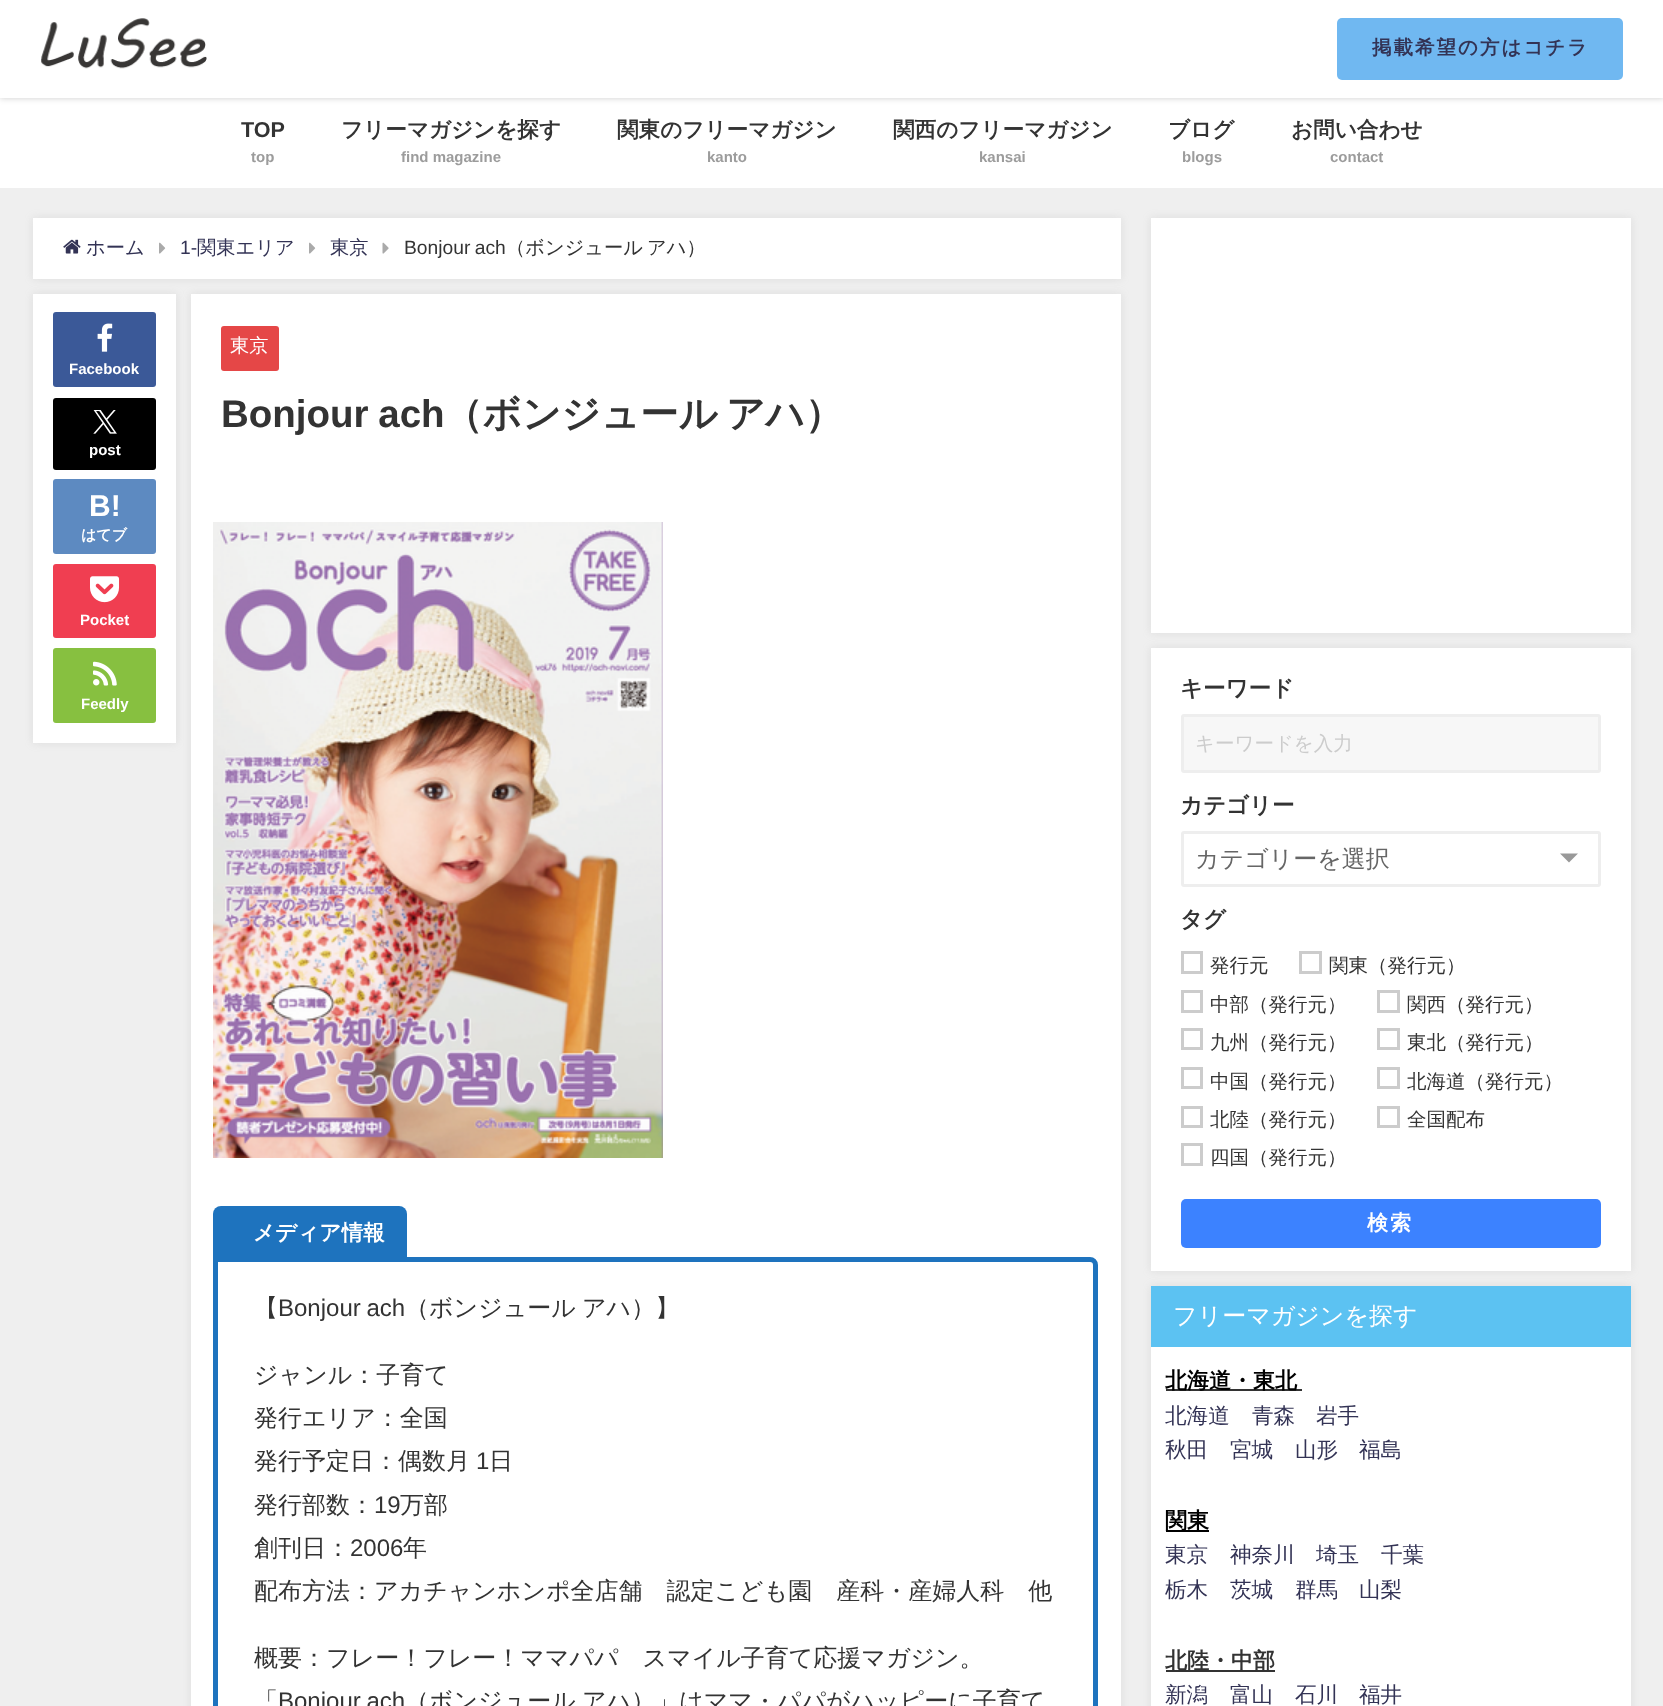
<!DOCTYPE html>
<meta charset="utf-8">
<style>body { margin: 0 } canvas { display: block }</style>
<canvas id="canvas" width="1663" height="1706"></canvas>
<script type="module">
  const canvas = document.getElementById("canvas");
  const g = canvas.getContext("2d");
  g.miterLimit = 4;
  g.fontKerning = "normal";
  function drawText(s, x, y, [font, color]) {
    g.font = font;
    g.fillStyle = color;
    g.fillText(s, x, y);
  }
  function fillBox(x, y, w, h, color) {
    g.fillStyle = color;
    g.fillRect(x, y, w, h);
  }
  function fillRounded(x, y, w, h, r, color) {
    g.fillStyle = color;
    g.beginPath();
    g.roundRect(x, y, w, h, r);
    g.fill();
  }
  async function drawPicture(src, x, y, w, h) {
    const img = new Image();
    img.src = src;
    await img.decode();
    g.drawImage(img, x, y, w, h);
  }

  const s1 = ["bold 19.5px WenQuanYi Zen Hei", "#333355"];
  const s2 = ["bold 21.6px Liberation Sans", "#333333"];
  const s3 = ["bold 15px Liberation Sans", "#9C9C9C"];
  const s4 = ["bold 21.6px WenQuanYi Zen Hei", "#333333"];
  const s5 = ["500 19.25px WenQuanYi Zen Hei", "#333355"];
  const s6 = ["19.25px Liberation Sans", "#333355"];
  const s7 = ["19.25px Liberation Sans", "#333333"];
  const s8 = ["500 19.25px WenQuanYi Zen Hei", "#333333"];
  const s9 = ["bold 15px Liberation Sans", "#FFFFFF"];
  const s10 = ["bold 30px Liberation Sans", "#FFFFFF"];
  const s11 = ["bold 15px WenQuanYi Zen Hei", "#FFFFFF"];
  const s12 = ["500 19.25px WenQuanYi Zen Hei", "#FFFFFF"];
  const s13 = ["bold 38.5px Liberation Sans", "#333333"];
  const s14 = ["bold 38.5px WenQuanYi Zen Hei", "#333333"];
  const s15 = ["bold 21.6px WenQuanYi Zen Hei", "#FFFFFF"];
  const s16 = ["500 24px WenQuanYi Zen Hei", "#333333"];
  const s17 = ["24px Liberation Sans", "#333333"];
  const s18 = ["bold 22.5px WenQuanYi Zen Hei", "#333333"];
  const s19 = ["500 19.5px WenQuanYi Zen Hei", "#CCCCCC"];
  const s20 = ["500 24px WenQuanYi Zen Hei", "#666666"];
  const s21 = ["500 19.5px WenQuanYi Zen Hei", "#333333"];
  const s22 = ["bold 21px WenQuanYi Zen Hei", "#FFFFFF"];
  const s23 = ["500 24px WenQuanYi Zen Hei", "#FFFFFF"];
  const s24 = ["bold 22px WenQuanYi Zen Hei", "#000000"];
  const s25 = ["500 21.6px WenQuanYi Zen Hei", "#333355"];
  const s26 = ["bold 22px WenQuanYi Zen Hei", "#333333"];

  fillBox(0, 0, 1663, 1706, "#EFEFEF");
  fillBox(0, 98, 1663, 90, "#FFFFFF");
  g.fillStyle = "rgba(0, 0, 0, 0.2)";
  g.filter = "blur(3px)";
  g.beginPath();
  g.rect(0, 0, 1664, 98);
  g.fill();
  g.filter = "none";
  fillBox(0, 0, 1663, 98, "#FFFFFF");
  await drawPicture("pic1.png", 41, 18, 166, 51);
  fillRounded(1337, 18, 286, 62, 5, "#70B8F1");
  g.letterSpacing = "2px";
  drawText("掲載希望の方はコチラ", 1372, 54, s1);
  g.letterSpacing = "0px";
  drawText("TOP", 241, 137, s2);
  drawText("top", 251, 162, s3);
  drawText("フリーマガジンを探す", 341, 137, s4);
  drawText("find magazine", 401, 162, s3);
  drawText("関東のフリーマガジン", 617, 137, s4);
  drawText("kanto", 707, 162, s3);
  drawText("関西のフリーマガジン", 893, 137, s4);
  drawText("kansai", 979, 162, s3);
  drawText("ブログ", 1168, 137, s4);
  drawText("blogs", 1182, 162, s3);
  drawText("お問い合わせ", 1291, 137, s4);
  drawText("contact", 1330, 162, s3);
  g.fillStyle = "rgba(150, 150, 150, 0.2)";
  g.filter = "blur(4px)";
  g.beginPath();
  g.rect(33, 218, 1088, 61);
  g.fill();
  g.filter = "none";
  fillBox(33, 218, 1088, 61, "#FFFFFF");
  await drawPicture("pic2.png", 63, 239, 18, 15);
  drawText("ホーム", 86, 254, s5);
  await drawPicture("pic3.png", 159, 242, 7, 12);
  drawText("1-", 180, 254, s6);
  drawText("関東エリア", 197, 254, s5);
  await drawPicture("pic3.png", 309, 242, 7, 12);
  drawText("東京", 330, 254, s5);
  await drawPicture("pic4.png", 382, 242, 7, 12);
  g.wordSpacing = "-1px";
  drawText("Bonjour ach", 404, 254, s7);
  g.wordSpacing = "0px";
  drawText("（ボンジュール", 506, 254, s8);
  drawText("アハ）", 647, 254, s8);
  g.fillStyle = "rgba(150, 150, 150, 0.2)";
  g.filter = "blur(4px)";
  g.beginPath();
  g.rect(33, 294, 143, 449);
  g.fill();
  g.filter = "none";
  fillBox(33, 294, 143, 449, "#FFFFFF");
  fillRounded(53, 312, 103, 75, 3, "#3B5998");
  await drawPicture("pic5.png", 97, 323, 16, 29);
  drawText("Facebook", 69, 374, s9);
  fillRounded(53, 398, 103, 72, 3, "#000000");
  await drawPicture("pic6.png", 93, 410, 24, 24);
  drawText("post", 89, 455, s9);
  fillRounded(53, 479, 103, 75, 3, "#5D8AC1");
  drawText("B!", 89, 516, s10);
  drawText("はてブ", 81, 540, s11);
  fillRounded(53, 564, 103, 74, 3, "#F03E51");
  await drawPicture("pic7.png", 90, 576, 30, 27);
  drawText("Pocket", 80, 625, s9);
  fillRounded(53, 648, 103, 75, 3, "#87C040");
  await drawPicture("pic8.png", 93, 661, 24, 25);
  drawText("Feedly", 81, 709, s9);
  g.fillStyle = "rgba(150, 150, 150, 0.2)";
  g.filter = "blur(4px)";
  g.beginPath();
  g.rect(191, 294, 930, 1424);
  g.fill();
  g.filter = "none";
  fillBox(191, 294, 930, 1412, "#FFFFFF");
  fillRounded(221, 326, 58, 45, 3, "#E54747");
  drawText("東京", 230, 352, s12);
  g.wordSpacing = "-1px";
  drawText("Bonjour ach", 221, 427, s13);
  g.wordSpacing = "0px";
  drawText("（ボンジュール", 444, 427, s14);
  drawText("アハ）", 726, 427, s14);
  await drawPicture("pic9.png", 213, 522, 450, 636);
  g.fillStyle = "#1E73BE";
  g.beginPath();
  g.roundRect(213, 1206, 194, 53, [8, 8, 0, 0]);
  g.fill();
  drawText("メディア情報", 253, 1240, s15);
  g.beginPath();
  g.moveTo(215.5, 1259.5);
  g.lineTo(1090, 1259.5);
  g.bezierCurveTo(1093, 1259.5, 1095.5, 1262, 1095.5, 1265);
  g.lineTo(1095.5, 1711);
  g.bezierCurveTo(1095.5, 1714, 1093, 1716.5, 1090, 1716.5);
  g.lineTo(221, 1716.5);
  g.bezierCurveTo(218, 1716.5, 215.5, 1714, 215.5, 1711);
  g.closePath();
  g.fill();
  g.strokeStyle = "#1E73BE";
  g.lineWidth = 5;
  g.stroke();
  drawText("【", 254, 1316, s16);
  g.wordSpacing = "-1px";
  drawText("Bonjour ach", 278, 1316, s17);
  g.wordSpacing = "0px";
  drawText("（ボンジュール", 405, 1316, s16);
  drawText("アハ）】", 582, 1316, s16);
  drawText("ジャンル：子育て", 254, 1383, s16);
  drawText("発行エリア：全国", 254, 1426, s16);
  drawText("発行予定日：偶数月", 254, 1469, s16);
  drawText("1", 476, 1469, s17);
  drawText("日", 489, 1469, s16);
  drawText("発行部数：", 254, 1513, s16);
  drawText("19", 374, 1513, s17);
  drawText("万部", 400, 1513, s16);
  drawText("創刊日：", 254, 1556, s16);
  drawText("2006", 350, 1556, s17);
  drawText("年", 403, 1556, s16);
  drawText("配布方法：アカチャンホンポ全店舗　認定こども園　産科・産婦人科　他", 254, 1599, s16);
  drawText("概要：フレー！フレー！ママパパ　スマイル子育て応援マガジン。", 254, 1666, s16);
  drawText("「", 254, 1709, s16);
  g.wordSpacing = "-1px";
  drawText("Bonjour ach", 278, 1709, s17);
  g.wordSpacing = "0px";
  drawText("（ボンジュール", 405, 1709, s16);
  drawText("アハ）」はママ・パパがハッピーに子育て", 582, 1709, s16);
  g.fillStyle = "rgba(150, 150, 150, 0.2)";
  g.filter = "blur(4px)";
  g.beginPath();
  g.rect(1151, 218, 480, 415);
  g.fill();
  g.filter = "none";
  fillBox(1151, 218, 480, 415, "#FFFFFF");
  g.fillStyle = "rgba(150, 150, 150, 0.2)";
  g.filter = "blur(4px)";
  g.beginPath();
  g.rect(1151, 648, 480, 623);
  g.fill();
  g.filter = "none";
  fillBox(1151, 648, 480, 623, "#FFFFFF");
  drawText("キーワード", 1180, 696, s18);
  g.fillStyle = "#F7F7F7";
  g.beginPath();
  g.roundRect(1182.5, 715.5, 417, 56, 1.5);
  g.fill();
  g.strokeStyle = "#EEEEEE";
  g.lineWidth = 3;
  g.stroke();
  drawText("キーワードを入力", 1195, 750, s19);
  drawText("カテゴリー", 1180, 813, s18);
  g.beginPath();
  g.roundRect(1182.5, 832.5, 417, 53, 1.5);
  g.stroke();
  drawText("カテゴリーを選択", 1195, 867, s20);
  g.fillStyle = "#999999";
  g.beginPath();
  g.moveTo(1560, 853.5);
  g.lineTo(1578, 853.5);
  g.lineTo(1569, 862.5);
  g.closePath();
  g.fill();
  drawText("タグ", 1180, 927, s18);
  g.strokeStyle = "#CCCCCC";
  g.strokeRect(1182.5, 952.5, 19, 20);
  drawText("発行元", 1210, 972, s21);
  g.strokeRect(1300.5, 952.5, 20, 20);
  drawText("関東（発行元）", 1329, 972, s21);
  g.strokeRect(1182.5, 991.5, 19, 20);
  drawText("中部（発行元）", 1210, 1011, s21);
  g.strokeRect(1378.5, 991.5, 20, 20);
  drawText("関西（発行元）", 1407, 1011, s21);
  g.strokeRect(1182.5, 1029.5, 19, 19);
  drawText("九州（発行元）", 1210, 1049, s21);
  g.strokeRect(1378.5, 1029.5, 20, 19);
  drawText("東北（発行元）", 1407, 1049, s21);
  g.strokeRect(1182.5, 1068.5, 19, 19);
  drawText("中国（発行元）", 1210, 1088, s21);
  g.strokeRect(1378.5, 1068.5, 20, 19);
  drawText("北海道（発行元）", 1407, 1088, s21);
  g.strokeRect(1182.5, 1107.5, 19, 19);
  drawText("北陸（発行元）", 1210, 1126, s21);
  g.strokeRect(1378.5, 1107.5, 20, 19);
  drawText("全国配布", 1407, 1126, s21);
  g.strokeRect(1182.5, 1144.5, 19, 20);
  drawText("四国（発行元）", 1210, 1164, s21);
  fillRounded(1181, 1199, 420, 49, 5, "#3C82FF");
  g.letterSpacing = "2px";
  drawText("検索", 1367, 1230, s22);
  g.fillStyle = "rgba(150, 150, 150, 0.2)";
  g.filter = "blur(4px)";
  g.beginPath();
  g.rect(1151, 1286, 480, 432);
  g.fill();
  g.filter = "none";
  fillBox(1151, 1347, 480, 359, "#FFFFFF");
  fillBox(1151, 1286, 480, 61, "#5CC2F2");
  g.letterSpacing = "0px";
  drawText("フリーマガジンを探す", 1173, 1324, s23);
  fillBox(1166, 1389, 136, 2, "#333333");
  drawText("北海道・東北", 1165, 1388, s24);
  drawText("北海道", 1165, 1423, s25);
  drawText("青森", 1252, 1423, s25);
  drawText("岩手", 1316, 1423, s25);
  drawText("秋田", 1165, 1457, s25);
  drawText("宮城", 1230, 1457, s25);
  drawText("山形", 1295, 1457, s25);
  drawText("福島", 1359, 1457, s25);
  fillBox(1166, 1530, 43, 2, "#000000");
  drawText("関東", 1165, 1528, s24);
  drawText("東京", 1165, 1562, s25);
  drawText("神奈川", 1230, 1562, s25);
  drawText("埼玉", 1316, 1562, s25);
  drawText("千葉", 1381, 1562, s25);
  drawText("栃木", 1165, 1597, s25);
  drawText("茨城", 1230, 1597, s25);
  drawText("群馬", 1295, 1597, s25);
  drawText("山梨", 1359, 1597, s25);
  fillBox(1166, 1670, 109, 2, "#333333");
  drawText("北陸・中部", 1165, 1668, s26);
  drawText("新潟", 1165, 1702, s25);
  drawText("富山", 1230, 1702, s25);
  drawText("石川", 1295, 1702, s25);
  drawText("福井", 1359, 1702, s25);
</script>
